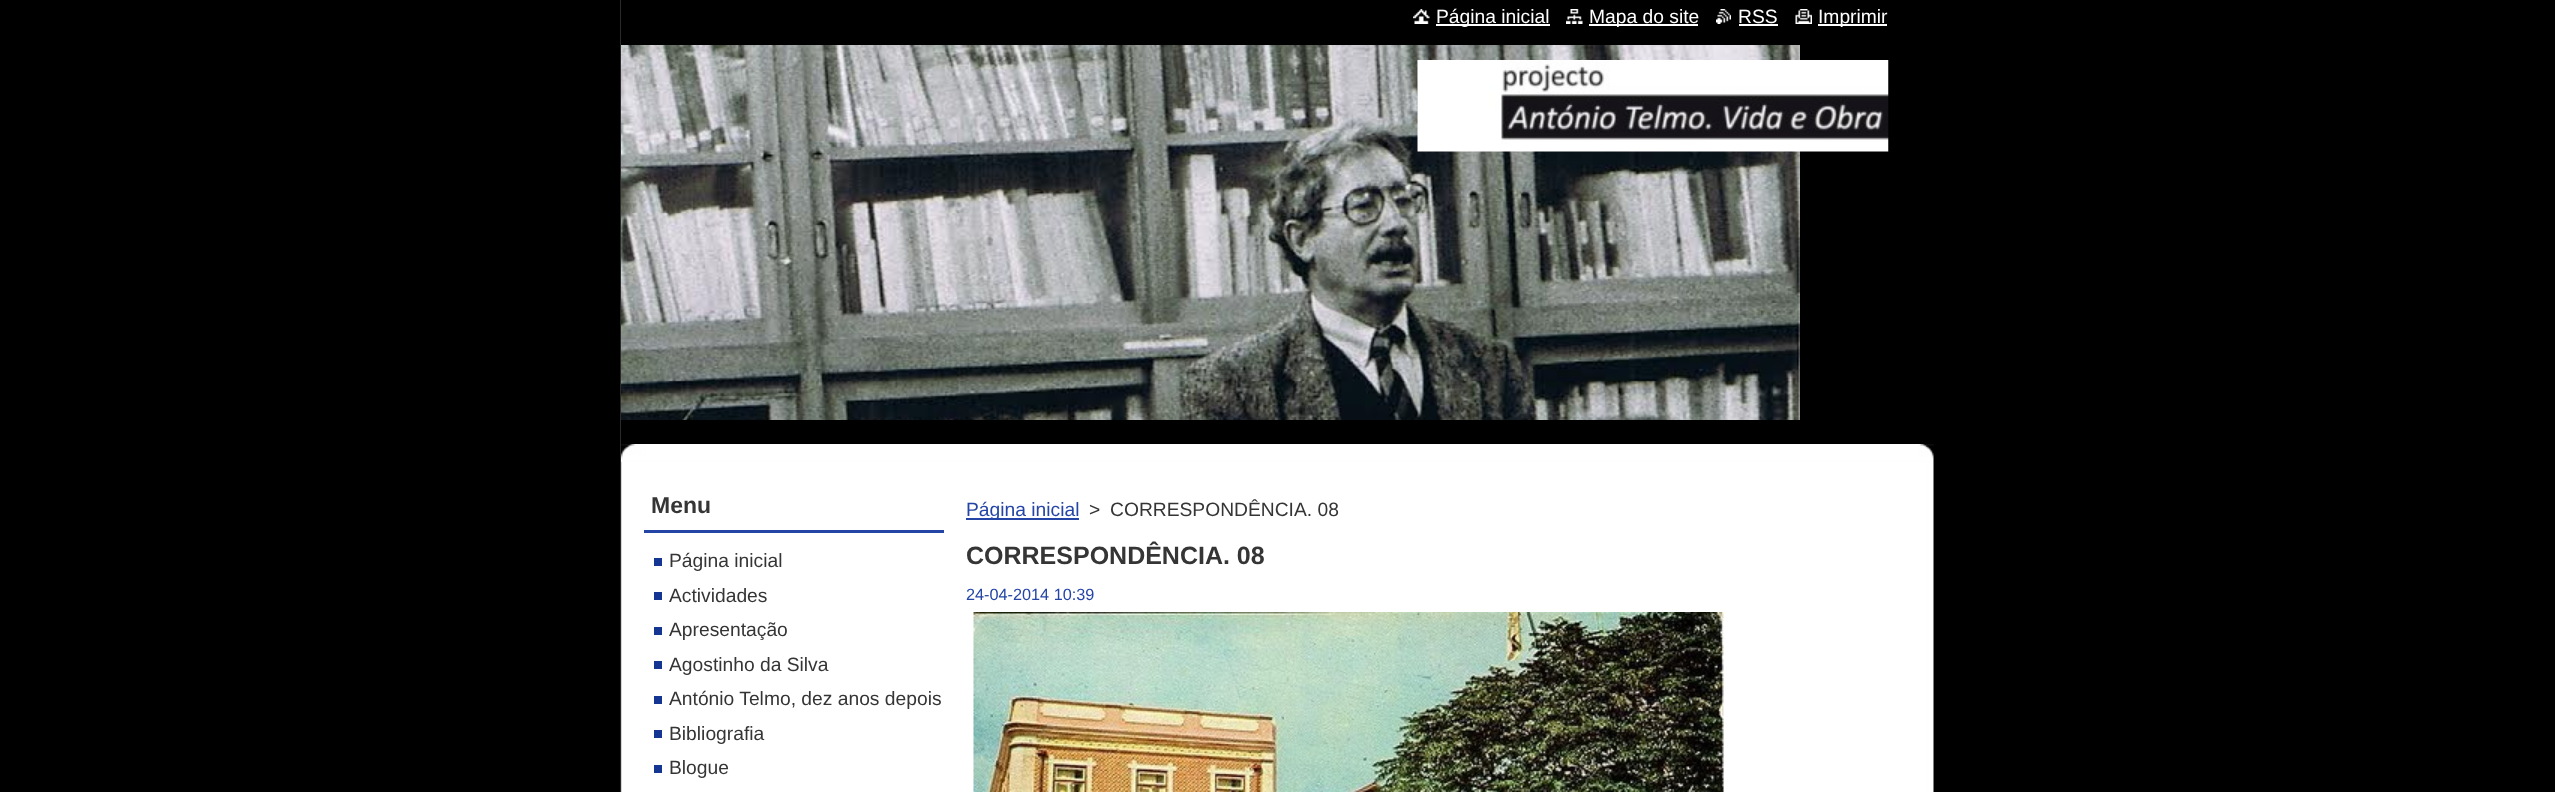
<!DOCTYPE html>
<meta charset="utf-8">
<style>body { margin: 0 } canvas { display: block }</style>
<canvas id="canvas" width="2555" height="792"></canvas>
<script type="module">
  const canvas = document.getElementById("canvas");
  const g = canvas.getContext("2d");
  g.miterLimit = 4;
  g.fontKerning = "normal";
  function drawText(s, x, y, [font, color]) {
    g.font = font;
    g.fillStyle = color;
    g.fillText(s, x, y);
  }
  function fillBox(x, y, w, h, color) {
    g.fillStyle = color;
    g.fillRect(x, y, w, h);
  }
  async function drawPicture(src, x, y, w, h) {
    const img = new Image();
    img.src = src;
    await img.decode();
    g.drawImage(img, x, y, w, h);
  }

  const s1 = ["19.25px Liberation Sans", "#FFFFFF"];
  const s2 = ["bold 23px Liberation Sans", "#353535"];
  const s3 = ["19.25px Liberation Sans", "#353535"];
  const s4 = ["19.25px Liberation Sans", "#2445A5"];
  const s5 = ["bold 25px Liberation Sans", "#353535"];
  const s6 = ["16.25px Liberation Sans", "#2445A5"];

  fillBox(0, 0, 2555, 792, "#000000");
  await drawPicture("pic1.png", 620, 0, 1314, 760);
  await drawPicture("pic2.png", 620, 760, 1314, 32);
  fillBox(621, 0, 1313, 462, "#000000");
  await drawPicture("pic3.png", 621, 444, 1313, 18);
  await drawPicture("pic4.png", 621, 45, 1179, 375);
  await drawPicture("pic5.png", 1417, 60, 472, 92);
  await drawPicture("pic6.png", 1413, 9, 17, 15);
  fillBox(1436, 24, 114, 2, "#FFFFFF");
  drawText("Página inicial", 1436, 23, s1);
  await drawPicture("pic7.png", 1566, 9, 17, 15);
  fillBox(1589, 24, 109, 2, "#FFFFFF");
  drawText("Mapa do site", 1589, 23, s1);
  await drawPicture("pic8.png", 1716, 9, 15, 15);
  drawText("RSS", 1738, 23, s1);
  fillBox(1739, 24, 39, 2, "#FFFFFF");
  await drawPicture("pic9.png", 1795, 9, 17, 15);
  fillBox(1818, 24, 69, 2, "#FFFFFF");
  drawText("Imprimir", 1818, 23, s1);
  fillBox(644, 530, 300, 3, "#2445A5");
  drawText("Menu", 651, 513, s2);
  drawText("Página inicial", 669, 567, s3);
  fillBox(654, 558, 8, 8, "#143592");
  drawText("Actividades", 669, 602, s3);
  fillBox(654, 592, 8, 8, "#143592");
  drawText("Apresentação", 669, 636, s3);
  fillBox(654, 627, 8, 8, "#143592");
  drawText("Agostinho da Silva", 669, 671, s3);
  fillBox(654, 661, 8, 8, "#143592");
  drawText("António Telmo, dez anos depois", 669, 705, s3);
  fillBox(654, 696, 8, 8, "#143592");
  drawText("Bibliografia", 669, 740, s3);
  fillBox(654, 730, 8, 8, "#143592");
  drawText("Blogue", 669, 774, s3);
  fillBox(654, 765, 8, 8, "#143592");
  fillBox(966, 518, 113, 2, "#2445A5");
  drawText("Página inicial", 966, 516, s4);
  drawText(">", 1089, 516, s3);
  drawText("CORRESPONDÊNCIA. 08", 1110, 516, s3);
  drawText("CORRESPONDÊNCIA. 08", 966, 564, s5);
  drawText("24-04-2014 10:39", 966, 600, s6);
  await drawPicture("pic10.png", 973, 612, 751, 180);
</script>
